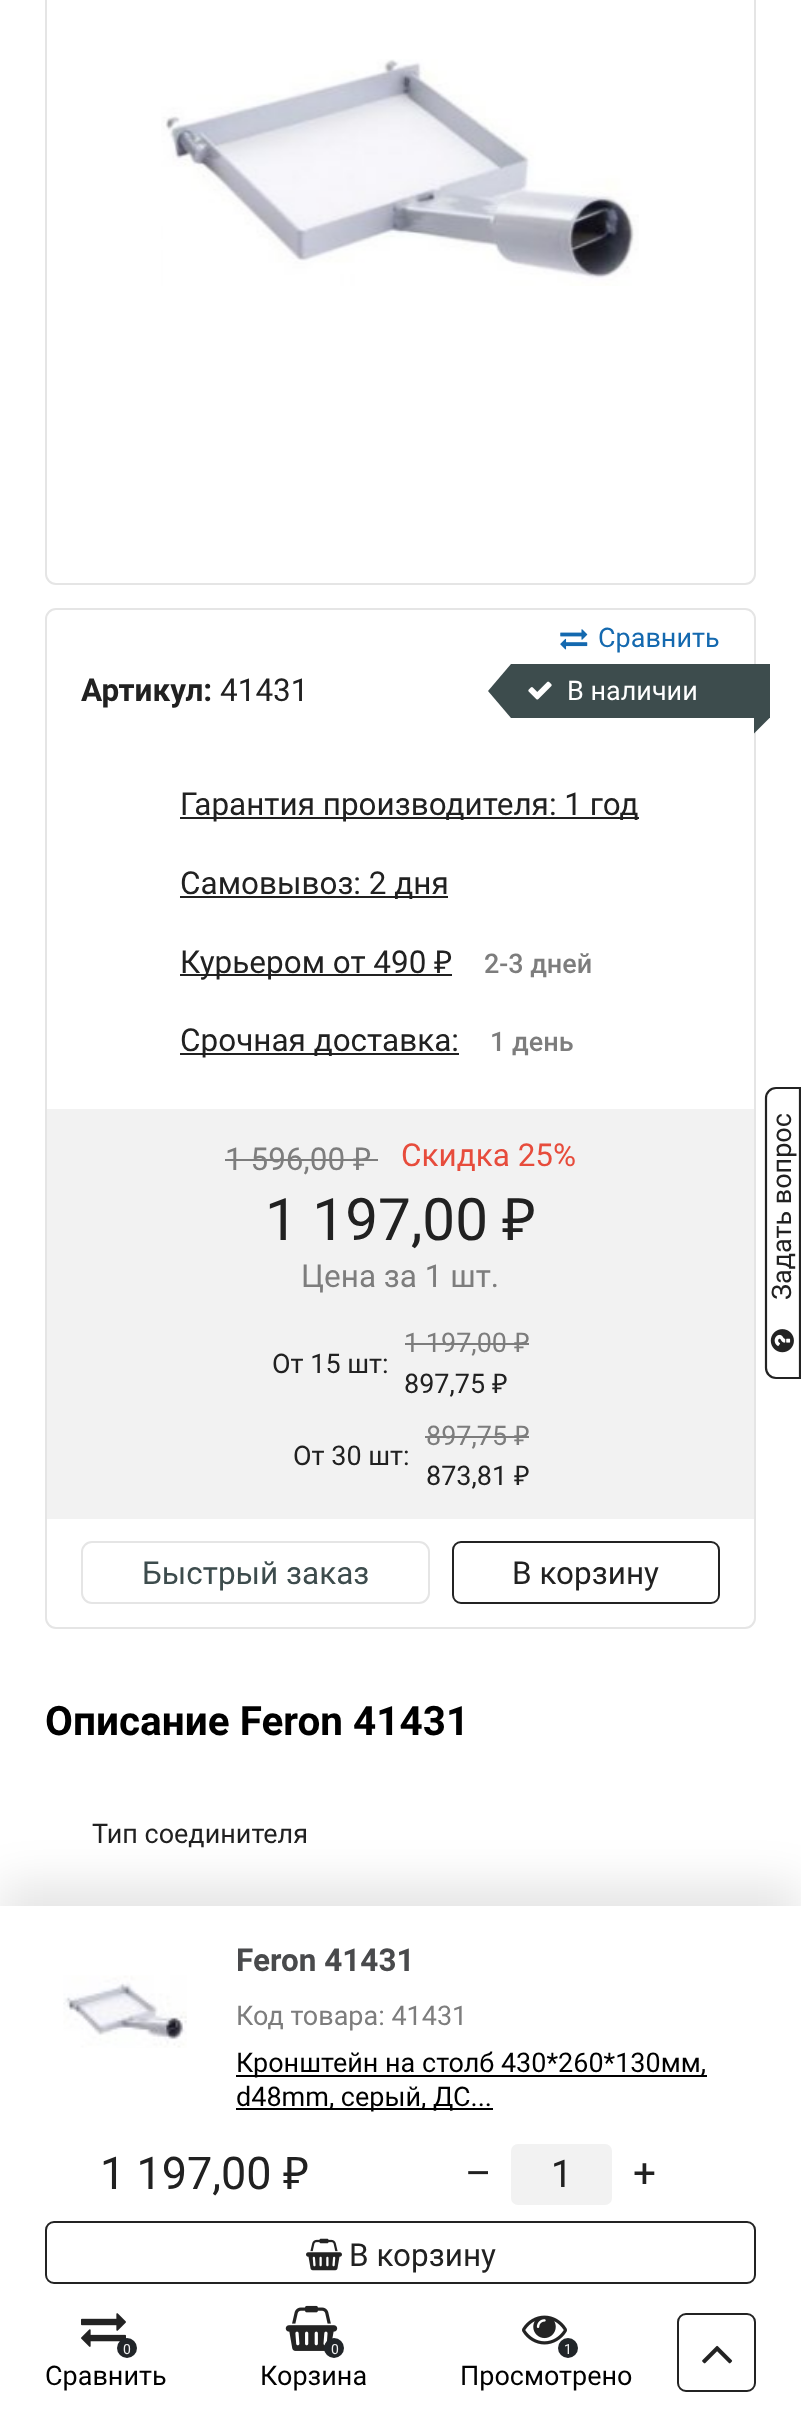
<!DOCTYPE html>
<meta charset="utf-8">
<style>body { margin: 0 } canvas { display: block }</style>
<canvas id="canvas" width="801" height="2429"></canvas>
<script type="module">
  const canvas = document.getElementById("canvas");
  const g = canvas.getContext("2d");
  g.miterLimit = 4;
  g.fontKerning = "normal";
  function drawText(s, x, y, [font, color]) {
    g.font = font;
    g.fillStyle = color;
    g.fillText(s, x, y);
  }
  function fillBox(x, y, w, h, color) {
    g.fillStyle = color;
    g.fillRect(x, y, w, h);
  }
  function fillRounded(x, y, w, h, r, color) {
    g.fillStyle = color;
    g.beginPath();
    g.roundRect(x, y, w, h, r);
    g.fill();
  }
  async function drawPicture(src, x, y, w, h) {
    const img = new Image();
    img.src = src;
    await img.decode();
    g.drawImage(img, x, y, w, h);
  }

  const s1 = ["27px Roboto", "#1469AF"];
  const s2 = ["bold 31.5px Roboto", "#212121"];
  const s3 = ["31.5px Roboto", "#212121"];
  const s4 = ["27px Roboto", "#FFFFFF"];
  const s5 = ["31.5px Noto Sans", "#212121"];
  const s6 = ["500 27px Roboto", "#7D7D7D"];
  const s7 = ["31.5px Roboto", "#7D7D7D"];
  const s8 = ["31.5px Noto Sans", "#7D7D7D"];
  const s9 = ["31.5px Roboto", "#E74C3C"];
  const s10 = ["58.5px Roboto", "#212121"];
  const s11 = ["58.5px Noto Sans", "#212121"];
  const s12 = ["27px Roboto", "#212121"];
  const s13 = ["27px Roboto", "#7D7D7D"];
  const s14 = ["27px Noto Sans", "#7D7D7D"];
  const s15 = ["27px Noto Sans", "#212121"];
  const s16 = ["31.5px Roboto", "#3D4C4D"];
  const s17 = ["bold 40.5px Roboto", "#000000"];
  const s18 = ["bold 31.5px Roboto", "#494A4C"];
  const s19 = ["27px Roboto", "#000000"];
  const s20 = ["45px Roboto", "#212121"];
  const s21 = ["45px Noto Sans", "#212121"];
  const s22 = ["40.5px Roboto", "#212121"];
  const s23 = ["38px Roboto", "#212121"];
  const s24 = ["14px Roboto", "#F0F0F1"];

  fillBox(0, 0, 801, 2429, "#FFFFFF");
  g.beginPath();
  g.roundRect(46, -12, 709, 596, 10);
  g.strokeStyle = "#E5E5E5";
  g.lineWidth = 2;
  g.stroke();
  await drawPicture("pic1.png", 161, 59, 478, 227);
  g.beginPath();
  g.roundRect(46, 609, 709, 1019, 10);
  g.stroke();
  await drawPicture("pic2.png", 560, 629, 28, 21);
  drawText("Сравнить", 598, 647, s1);
  drawText("Артикул:", 81, 701, s2);
  drawText("41431", 220, 701, s3);
  fillBox(511, 664, 259, 54, "#3D4C4D");
  g.beginPath();
  g.moveTo(511, 664);
  g.lineTo(511, 718);
  g.lineTo(488, 691);
  g.closePath();
  g.fill();
  await drawPicture("pic3.png", 528, 681, 24, 19);
  drawText("В наличии", 567, 700, s4);
  g.fillStyle = "#3D4C4D";
  g.beginPath();
  g.moveTo(754, 718);
  g.lineTo(769.5, 718);
  g.lineTo(754, 733.5);
  g.closePath();
  g.fill();
  fillBox(180, 817, 459, 2, "#212121");
  drawText("Гарантия производителя: 1 год", 180, 815, s3);
  fillBox(180, 896, 268, 2, "#212121");
  drawText("Самовывоз: 2 дня", 180, 894, s3);
  fillBox(180, 974, 272, 2, "#212121");
  drawText("Курьером от 490", 180, 973, s3);
  drawText("₽", 434, 973, s5);
  drawText("2-3 дней", 484, 973, s6);
  fillBox(180, 1053, 279, 2, "#212121");
  drawText("Срочная доставка:", 180, 1051, s3);
  drawText("1 день", 490, 1051, s6);
  fillBox(47, 1109, 707, 410, "#F2F2F2");
  drawText("1 596,00", 225, 1170, s7);
  fillBox(225, 1159, 153, 2, "#7D7D7D");
  drawText("₽", 353, 1170, s8);
  drawText("Скидка 25%", 401, 1166, s9);
  drawText("1 197,00", 265, 1240, s10);
  drawText("₽", 502, 1240, s11);
  drawText("Цена за 1 шт.", 301, 1287, s7);
  drawText("От 15 шт:", 272, 1373, s12);
  drawText("1 197,00", 404, 1352, s13);
  fillBox(405, 1343, 124, 2, "#7D7D7D");
  drawText("₽", 514, 1352, s14);
  drawText("897,75", 404, 1393, s12);
  drawText("₽", 492, 1393, s15);
  drawText("От 30 шт:", 293, 1465, s12);
  drawText("897,75", 426, 1445, s13);
  fillBox(425, 1436, 104, 2, "#7D7D7D");
  drawText("₽", 514, 1445, s14);
  drawText("873,81", 426, 1485, s12);
  drawText("₽", 514, 1485, s15);
  g.beginPath();
  g.roundRect(82, 1542, 347, 61, 10);
  g.stroke();
  drawText("Быстрый заказ", 142, 1584, s16);
  g.beginPath();
  g.roundRect(453, 1542, 266, 61, 8);
  g.strokeStyle = "#232323";
  g.stroke();
  drawText("В корзину", 512, 1584, s3);
  drawText("Описание Feron 41431", 45, 1735, s17);
  drawText("Тип соединителя", 92, 1843, s12);
  g.beginPath();
  g.moveTo(766, 1368);
  g.lineTo(766, 1098);
  g.bezierCurveTo(766, 1092.5, 770.5, 1088, 776, 1088);
  g.lineTo(800, 1088);
  g.lineTo(800, 1378);
  g.lineTo(776, 1378);
  g.bezierCurveTo(770.5, 1378, 766, 1373.5, 766, 1368);
  g.closePath();
  g.lineWidth = 2.2;
  g.stroke();
  g.save();
  g.translate(791, 1300);
  g.rotate(-90 * Math.PI / 180);
  g.fillText("Задать вопрос", 0, 0);
  g.restore();
  await drawPicture("pic4.png", 770, 1329, 24, 24);
  g.fillStyle = "rgba(0, 0, 0, 0.1)";
  g.filter = "blur(22.5px)";
  g.beginPath();
  g.rect(0, 1883, 801, 525);
  g.fill();
  g.filter = "none";
  fillBox(0, 1906, 801, 523, "#FFFFFF");
  await drawPicture("pic5.png", 63, 1975, 124, 73);
  drawText("Feron 41431", 236, 1971, s18);
  drawText("Код товара: 41431", 236, 2025, s13);
  fillBox(236, 2075, 471, 2, "#000000");
  drawText("Кронштейн на столб 430*260*130мм,", 236, 2072, s19);
  fillBox(236, 2108, 257, 2, "#000000");
  drawText("d48mm, серый, ДС...", 236, 2106, s19);
  drawText("1 197,00", 100, 2189, s20);
  drawText("₽", 283, 2189, s21);
  drawText("–", 465, 2187, s22);
  fillRounded(511, 2144, 101, 61, 7, "#F2F2F2");
  drawText("1", 551, 2187, s23);
  drawText("+", 633, 2187, s22);
  g.beginPath();
  g.roundRect(46, 2222, 709, 61, 8);
  g.lineWidth = 2;
  g.stroke();
  await drawPicture("pic6.png", 306, 2238, 36, 33);
  drawText("В корзину", 349, 2266, s3);
  await drawPicture("pic7.png", 81, 2313, 45, 34);
  g.fillStyle = "#212529";
  g.beginPath();
  g.arc(127, 2348, 10, 0, Math.PI * 2);
  g.fill();
  drawText("0", 123, 2354, s24);
  drawText("Сравнить", 45, 2385, s19);
  await drawPicture("pic8.png", 285, 2305, 53, 46);
  g.fillStyle = "#212529";
  g.beginPath();
  g.arc(334, 2348, 10, 0, Math.PI * 2);
  g.fill();
  drawText("0", 331, 2354, s24);
  drawText("Корзина", 260, 2385, s19);
  await drawPicture("pic9.png", 522, 2315, 45, 30);
  g.fillStyle = "#212529";
  g.beginPath();
  g.arc(568, 2348, 10, 0, Math.PI * 2);
  g.fill();
  drawText("1", 564, 2354, s24);
  drawText("Просмотрено", 460, 2385, s19);
  g.beginPath();
  g.roundRect(678, 2314, 77, 77, 8);
  g.stroke();
  await drawPicture("pic10.png", 702, 2345, 31, 19);
</script>
